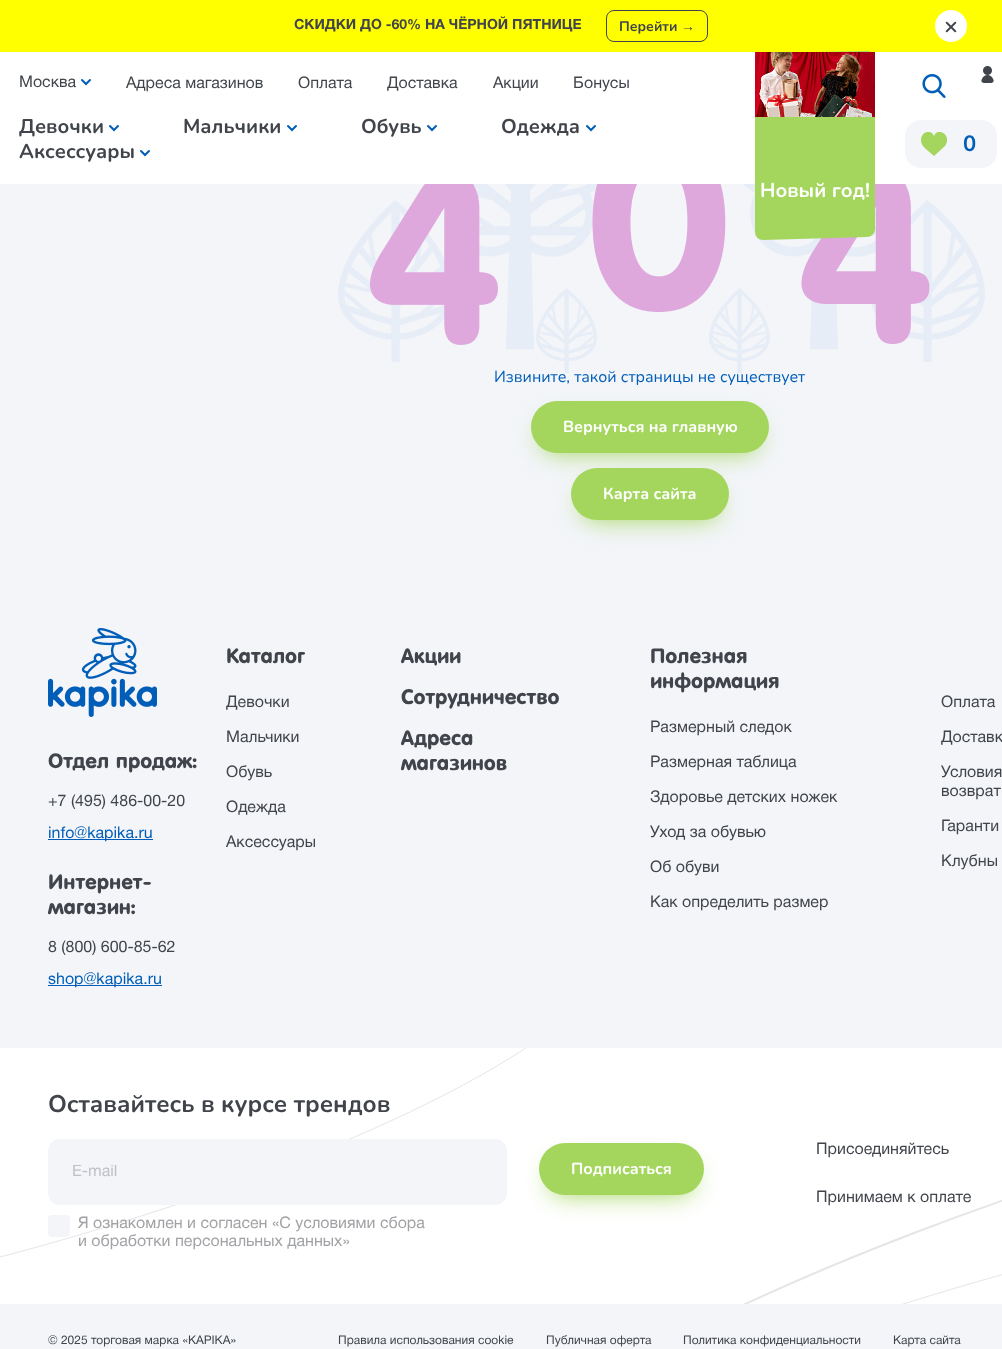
<!DOCTYPE html>
<meta charset="utf-8">
<style>body { margin: 0 } canvas { display: block }</style>
<canvas id="canvas" width="1002" height="1349"></canvas>
<script type="module">
  const canvas = document.getElementById("canvas");
  const g = canvas.getContext("2d");
  g.miterLimit = 4;
  g.fontKerning = "normal";
  function drawText(s, x, y, [font, color]) {
    g.font = font;
    g.fillStyle = color;
    g.fillText(s, x, y);
  }
  function fillBox(x, y, w, h, color) {
    g.fillStyle = color;
    g.fillRect(x, y, w, h);
  }
  function fillRounded(x, y, w, h, r, color) {
    g.fillStyle = color;
    g.beginPath();
    g.roundRect(x, y, w, h, r);
    g.fill();
  }
  async function drawPicture(src, x, y, w, h) {
    const img = new Image();
    img.src = src;
    await img.decode();
    g.drawImage(img, x, y, w, h);
  }

  const s1 = ["bold 14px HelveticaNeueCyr", "#41454B"];
  const s2 = ["bold 14px Nunito", "#41454B"];
  const s3 = ["bold 14px Liberation Sans", "#41454B"];
  const s4 = ["16px HelveticaNeueCyr", "#41454B"];
  const s5 = ["bold 20px Nunito", "#41454B"];
  const s6 = ["bold 22px Nunito", "#005EB8"];
  const s7 = ["16px Nunito", "#005EB8"];
  const s8 = ["bold 20px Nunito", "#FFFFFF"];
  const s9 = ["bold 16px Nunito", "#FFFFFF"];
  const s10 = ["bold 20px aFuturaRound", "#41454B"];
  const s11 = ["16px HelveticaNeueCyr", "#005EB8"];
  const s12 = ["bold 24px Nunito", "#41454B"];
  const s13 = ["16px HelveticaNeueCyr", "#BEC0C5"];
  const s14 = ["16px HelveticaNeueCyr", "#A0A2A5"];
  const s15 = ["12px HelveticaNeueCyr", "#41454B"];

  fillBox(0, 0, 1002, 1349, "#F3F5F9");
  fillBox(0, 0, 1002, 52, "#FFFF00");
  drawText("СКИДКИ ДО -60% НА ЧЁРНОЙ ПЯТНИЦЕ", 294, 29, s1);
  g.beginPath();
  g.roundRect(606.5, 10.5, 101, 31, 7.5);
  g.strokeStyle = "#41454B";
  g.stroke();
  drawText("Перейти", 619, 31, s2);
  drawText("→", 681, 31, s3);
  g.fillStyle = "#FFFFFF";
  g.beginPath();
  g.arc(951, 26, 16, 0, Math.PI * 2);
  g.fill();
  await drawPicture("pic1.png", 945, 21, 12, 12);
  fillBox(0, 52, 1002, 132, "#FFFFFF");
  drawText("Москва", 19, 87, s4);
  drawText("Девочки", 19, 133, s5);
  g.beginPath();
  g.moveTo(90, 80);
  g.lineTo(86, 84);
  g.lineTo(82, 80);
  g.moveTo(118, 126);
  g.lineTo(114, 130);
  g.lineTo(110, 126);
  g.strokeStyle = "#005EB8";
  g.lineWidth = 2;
  g.lineCap = "round";
  g.stroke();
  drawText("Адреса магазинов", 126, 88, s4);
  drawText("Оплата", 298, 88, s4);
  drawText("Доставка", 387, 88, s4);
  drawText("Акции", 493, 88, s4);
  drawText("Бонусы", 573, 88, s4);
  drawText("Мальчики", 183, 133, s5);
  g.beginPath();
  g.moveTo(296, 126);
  g.lineTo(292, 130);
  g.lineTo(288, 126);
  g.stroke();
  drawText("Обувь", 361, 133, s5);
  g.beginPath();
  g.moveTo(436, 126);
  g.lineTo(432, 130);
  g.lineTo(428, 126);
  g.stroke();
  drawText("Одежда", 501, 133, s5);
  g.beginPath();
  g.moveTo(595, 126);
  g.lineTo(591, 130);
  g.lineTo(587, 126);
  g.stroke();
  drawText("Аксессуары", 19, 158, s5);
  g.beginPath();
  g.moveTo(149, 151);
  g.lineTo(145, 155);
  g.lineTo(141, 151);
  g.stroke();
  await drawPicture("pic2.png", 922, 74, 24, 24);
  await drawPicture("pic3.png", 981, 66, 13, 17);
  fillRounded(905, 120, 92, 48, 16, "#F3F5F9");
  g.save();
  g.beginPath();
  g.rect(921, 132, 26, 24);
  g.clip();
  g.fillStyle = "#A4D65E";
  g.beginPath();
  g.moveTo(934, 136);
  g.bezierCurveTo(938, 126, 952.5, 135.5, 945, 146);
  g.lineTo(934, 156);
  g.bezierCurveTo(930.5, 153, 925.5, 149, 923, 146);
  g.bezierCurveTo(916, 135.5, 929.5, 126, 934, 136);
  g.closePath();
  g.fill();
  g.restore();
  drawText("0", 963, 151, s6);
  await drawPicture("pic6.png", 338, 200, 107, 162);
  await drawPicture("pic7.png", 473, 184, 125, 166);
  drawText("Извините, такой страницы не существует", 494, 382, s7);
  await drawPicture("pic10.png", 709, 288, 61, 85);
  await drawPicture("pic8.png", 743, 184, 164, 166);
  await drawPicture("pic9.png", 871, 200, 114, 162);
  await drawPicture("pic10.png", 536, 288, 61, 85);
  await drawPicture("pic5.png", 370, 184, 560, 161);
  g.fillStyle = "#A4D65E";
  g.beginPath();
  g.moveTo(763, 53);
  g.lineTo(867, 51);
  g.bezierCurveTo(872, 51, 875, 54, 875, 58);
  g.lineTo(875, 229);
  g.bezierCurveTo(875, 233, 872, 237, 867, 237);
  g.lineTo(763, 240);
  g.bezierCurveTo(759, 240, 755, 237, 755, 232);
  g.lineTo(755, 62);
  g.bezierCurveTo(755, 57, 759, 53, 763, 53);
  g.closePath();
  g.fill();
  await drawPicture("pic4.png", 755, 52, 120, 65);
  drawText("Новый год!", 760, 197, s8);
  g.fillStyle = "#A4D65E";
  g.filter = "blur(12.5px)";
  g.beginPath();
  g.roundRect(541, 421, 218, 32, 16);
  g.fill();
  g.filter = "none";
  fillRounded(531, 401, 238, 52, 26, "#A4D65E");
  drawText("Вернуться на главную", 563, 432, s9);
  g.fillStyle = "#A4D65E";
  g.filter = "blur(12.5px)";
  g.beginPath();
  g.roundRect(581, 488, 138, 32, 16);
  g.fill();
  g.filter = "none";
  fillRounded(571, 468, 158, 52, 26, "#A4D65E");
  drawText("Карта сайта", 603, 499, s9);
  await drawPicture("pic11.png", 48, 628, 109, 89);
  drawText("Отдел продаж:", 48, 768, s10);
  drawText("+7 (495) 486-00-20", 48, 806, s4);
  fillBox(48, 839, 105, 1, "#005EB8");
  drawText("info@kapika.ru", 48, 838, s11);
  drawText("Интернет-", 48, 889, s10);
  drawText("магазин:", 48, 914, s10);
  drawText("8 (800) 600-85-62", 48, 952, s4);
  fillBox(48, 985, 114, 1, "#005EB8");
  drawText("shop@kapika.ru", 48, 984, s11);
  drawText("Каталог", 226, 663, s10);
  drawText("Девочки", 226, 707, s4);
  drawText("Мальчики", 226, 742, s4);
  drawText("Обувь", 226, 777, s4);
  drawText("Одежда", 226, 812, s4);
  drawText("Аксессуары", 226, 847, s4);
  drawText("Акции", 401, 663, s10);
  drawText("Сотрудничество", 401, 704, s10);
  drawText("Адреса", 401, 745, s10);
  drawText("магазинов", 401, 770, s10);
  drawText("Полезная", 650, 663, s10);
  drawText("информация", 650, 688, s10);
  drawText("Размерный следок", 650, 732, s4);
  drawText("Размерная таблица", 650, 767, s4);
  drawText("Здоровье детских ножек", 650, 802, s4);
  drawText("Уход за обувью", 650, 837, s4);
  drawText("Об обуви", 650, 872, s4);
  drawText("Как определить размер", 650, 907, s4);
  drawText("Оплата", 941, 707, s4);
  drawText("Доставк", 941, 742, s4);
  drawText("Условия", 941, 777, s4);
  drawText("возврат", 941, 796, s4);
  drawText("Гаранти", 941, 831, s4);
  drawText("Клубны", 941, 866, s4);
  fillBox(0, 1048, 1002, 256, "#FFFFFF");
  g.save();
  g.beginPath();
  g.rect(0, 1048, 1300, 256);
  g.clip();
  g.beginPath();
  g.moveTo(-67, 965);
  g.bezierCurveTo(284, 869, 590, 854.5, 616, 933);
  g.bezierCurveTo(642, 1012, 379, 1153.5, 28, 1249.5);
  g.bezierCurveTo(-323, 1345.5, -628.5, 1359.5, -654.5, 1281);
  g.bezierCurveTo(-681, 1202.5, -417.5, 1061, -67, 965);
  g.closePath();
  g.strokeStyle = "#E6E6E8";
  g.lineWidth = 1;
  g.lineCap = "butt";
  g.stroke();
  g.restore();
  drawText("Оставайтесь в курсе трендов", 48, 1112, s12);
  fillRounded(48, 1139, 459, 66, 12, "#F3F5F9");
  g.save();
  g.beginPath();
  g.rect(72, 1165, 411, 15);
  g.clip();
  drawText("E-mail", 72, 1176, s13);
  g.restore();
  fillRounded(48, 1215, 22, 22, 4, "#F3F5F9");
  drawText("Я ознакомлен и согласен «С условиями сбора", 78, 1228, s14);
  drawText("и обработки персональных данных»", 78, 1246, s14);
  g.fillStyle = "#A4D65E";
  g.filter = "blur(12.5px)";
  g.beginPath();
  g.roundRect(549, 1163, 145, 32, 16);
  g.fill();
  g.filter = "none";
  fillRounded(539, 1143, 165, 52, 26, "#A4D65E");
  drawText("Подписаться", 571, 1174, s9);
  drawText("Присоединяйтесь", 816, 1154, s4);
  g.save();
  g.beginPath();
  g.rect(0, 1048, 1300, 256);
  g.clip();
  g.beginPath();
  g.moveTo(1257, 1121.5);
  g.bezierCurveTo(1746.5, 987.5, 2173.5, 969, 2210.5, 1080);
  g.bezierCurveTo(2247.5, 1191, 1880.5, 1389.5, 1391, 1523.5);
  g.bezierCurveTo(901.5, 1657.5, 474.5, 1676, 437.5, 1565);
  g.bezierCurveTo(400.5, 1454, 767.5, 1255.5, 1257, 1121.5);
  g.closePath();
  g.strokeStyle = "#E6E6E8";
  g.lineCap = "butt";
  g.stroke();
  g.restore();
  drawText("Принимаем к оплате", 816, 1202, s4);
  g.save();
  g.beginPath();
  g.rect(0, 1048, 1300, 256);
  g.clip();
  g.beginPath();
  g.moveTo(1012, 1272);
  g.bezierCurveTo(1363, 1176, 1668.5, 1162, 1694.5, 1240.5);
  g.bezierCurveTo(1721, 1319, 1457.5, 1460.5, 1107, 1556.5);
  g.bezierCurveTo(756, 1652.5, 450, 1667, 424, 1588);
  g.bezierCurveTo(398, 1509.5, 661, 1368, 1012, 1272);
  g.closePath();
  g.strokeStyle = "#E6E6E8";
  g.lineWidth = 1;
  g.lineCap = "butt";
  g.stroke();
  g.restore();
  drawText("© 2025 торговая марка «KAPIKA»", 48, 1344, s15);
  drawText("Правила использования cookie", 338, 1344, s15);
  drawText("Публичная оферта", 546, 1344, s15);
  drawText("Политика конфиденциальности", 683, 1344, s15);
  drawText("Карта сайта", 893, 1344, s15);
</script>
